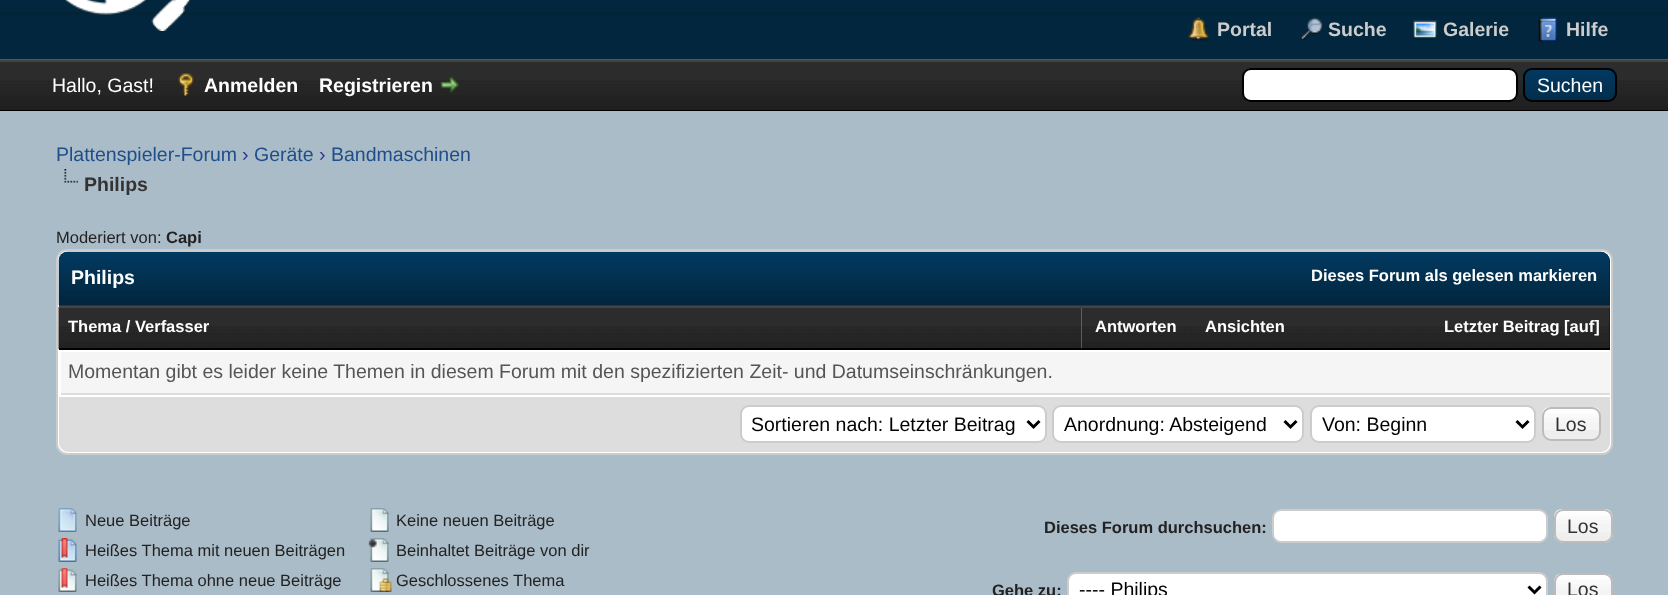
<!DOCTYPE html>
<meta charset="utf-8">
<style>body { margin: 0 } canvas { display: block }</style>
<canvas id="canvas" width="1668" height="595"></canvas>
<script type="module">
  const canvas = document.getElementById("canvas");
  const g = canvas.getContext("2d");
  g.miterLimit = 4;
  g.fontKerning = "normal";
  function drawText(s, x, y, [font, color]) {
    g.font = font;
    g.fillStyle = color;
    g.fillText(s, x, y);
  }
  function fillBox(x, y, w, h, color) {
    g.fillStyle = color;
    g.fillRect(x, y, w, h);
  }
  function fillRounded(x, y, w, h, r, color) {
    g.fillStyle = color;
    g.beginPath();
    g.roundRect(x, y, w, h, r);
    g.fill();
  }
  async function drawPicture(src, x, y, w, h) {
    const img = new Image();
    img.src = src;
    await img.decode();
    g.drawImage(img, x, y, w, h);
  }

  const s1 = ["bold 19.5px Liberation Sans", "#CCCCCC"];
  const s2 = ["19.5px Liberation Sans", "#FFFFFF"];
  const s3 = ["bold 19.5px Liberation Sans", "#FFFFFF"];
  const s4 = ["19.5px Liberation Sans", "#204E8A"];
  const s5 = ["19.5px Liberation Sans", "#333399"];
  const s6 = ["bold 19.5px Liberation Sans", "#333333"];
  const s7 = ["16.5px Liberation Sans", "#222222"];
  const s8 = ["bold 16.5px Liberation Sans", "#222222"];
  const s9 = ["bold 16.5px Liberation Sans", "#FFFFFF"];
  const s10 = ["19.5px Liberation Sans", "#555555"];
  const s11 = ["19.5px Liberation Sans", "#000000"];
  const s12 = ["19.5px Liberation Sans", "#333333"];

  fillBox(0, 0, 1668, 595, "#01263D");
  fillBox(0, 12, 1668, 3, "#012438");
  fillBox(0, 59, 1668, 1, "#555555");
  await drawPicture("pic1.png", 65, 0, 126, 31);
  await drawPicture("pic2.png", 1187, 17, 23, 24);
  drawText("Portal", 1217, 36, s1);
  await drawPicture("pic3.png", 1300, 17, 23, 24);
  drawText("Suche", 1328, 36, s1);
  await drawPicture("pic4.png", 1413, 20, 24, 20);
  drawText("Galerie", 1443, 36, s1);
  await drawPicture("pic5.png", 1538, 17, 20, 25);
  drawText("Hilfe", 1566, 36, s1);
  await drawPicture("pic6.png", 0, 62, 1668, 48);
  fillBox(0, 60, 1668, 2, "#444444");
  fillBox(0, 110, 1668, 1, "#000000");
  drawText("Hallo, Gast!", 52, 92, s2);
  await drawPicture("pic7.png", 178, 73, 16, 23);
  drawText("Anmelden", 204, 92, s3);
  drawText("Registrieren", 319, 92, s3);
  await drawPicture("pic8.png", 440, 77, 20, 16);
  g.beginPath();
  g.roundRect(1243, 69, 274, 32, 8);
  g.fill();
  g.strokeStyle = "#000000";
  g.lineWidth = 2;
  g.stroke();
  await drawPicture("pic9.png", 1522, 68, 95, 33);
  g.beginPath();
  g.roundRect(1524, 69, 92, 32, 8);
  g.stroke();
  drawText("Suchen", 1537, 92, s2);
  fillBox(0, 111, 1668, 484, "#AABCC8");
  drawText("Plattenspieler-Forum", 56, 161, s4);
  drawText("›", 242, 161, s5);
  drawText("Geräte", 254, 161, s4);
  drawText("›", 319, 161, s5);
  drawText("Bandmaschinen", 331, 161, s4);
  await drawPicture("pic10.png", 64, 169, 14, 14);
  drawText("Philips", 84, 191, s6);
  drawText("Moderiert von:", 56, 243, s7);
  drawText("Capi", 166, 243, s8);
  g.fillStyle = "#FFFFFF";
  g.beginPath();
  g.roundRect(57, 250, 1555, 204, 10);
  g.fill();
  g.strokeStyle = "#CCCCCC";
  g.stroke();
  g.fillStyle = "#02263E";
  g.beginPath();
  g.roundRect(59, 252, 1551, 54, [9, 9, 0, 0]);
  g.fill();
  await drawPicture("pic11.png", 58, 251, 1552, 55);
  fillBox(59, 305, 1551, 1, "#133F41");
  drawText("Philips", 71, 284, s3);
  drawText("Dieses Forum als gelesen markieren", 1311, 281, s9);
  await drawPicture("pic12.png", 58, 307, 1024, 42);
  fillBox(59, 306, 1023, 2, "#444444");
  fillBox(59, 348, 1023, 2, "#000000");
  drawText("Thema / Verfasser", 68, 332, s9);
  await drawPicture("pic13.png", 1081, 307, 110, 42);
  fillBox(1082, 306, 528, 2, "#444444");
  fillBox(1082, 348, 528, 2, "#000000");
  drawText("Antworten", 1095, 332, s9);
  await drawPicture("pic14.png", 1191, 308, 108, 40);
  drawText("Ansichten", 1205, 332, s9);
  fillBox(1609, 308, 1, 40, "#0F0F0F");
  await drawPicture("pic15.png", 1299, 308, 311, 40);
  drawText("Letzter Beitrag [auf]", 1444, 332, s9);
  fillBox(61, 352, 1549, 41, "#F5F5F5");
  fillBox(59, 393, 1551, 2, "#DDDDDD");
  fillBox(59, 393, 2, 2, "#FFFFFF");
  drawText("Momentan gibt es leider keine Themen in diesem Forum mit den spezifizierten Zeit- und Datumseinschränkungen.", 68, 378, s10);
  g.fillStyle = "#DDDDDD";
  g.beginPath();
  g.roundRect(59, 395, 1551, 57, [0, 0, 9, 9]);
  g.fill();
  fillBox(59, 395, 1551, 2, "#FFFFFF");
  g.beginPath();
  g.roundRect(741, 406, 305, 36, 8);
  g.fill();
  g.stroke();
  g.beginPath();
  g.moveTo(1027.5, 421);
  g.lineTo(1033.5, 427);
  g.lineTo(1039.5, 421);
  g.strokeStyle = "#000000";
  g.lineWidth = 3;
  g.stroke();
  drawText("Sortieren nach: Letzter Beitrag", 751, 431, s11);
  g.fillStyle = "#FFFFFF";
  g.beginPath();
  g.roundRect(1053, 406, 250, 36, 8);
  g.fill();
  g.strokeStyle = "#CCCCCC";
  g.lineWidth = 2;
  g.stroke();
  g.beginPath();
  g.moveTo(1284.5, 421);
  g.lineTo(1290.5, 427);
  g.lineTo(1296.5, 421);
  g.strokeStyle = "#000000";
  g.lineWidth = 3;
  g.stroke();
  drawText("Anordnung: Absteigend", 1064, 431, s11);
  g.fillStyle = "#FFFFFF";
  g.beginPath();
  g.roundRect(1311, 406, 224, 36, 8);
  g.fill();
  g.strokeStyle = "#CCCCCC";
  g.lineWidth = 2;
  g.stroke();
  g.beginPath();
  g.moveTo(1516.5, 421);
  g.lineTo(1522.5, 427);
  g.lineTo(1528.5, 421);
  g.strokeStyle = "#000000";
  g.lineWidth = 3;
  g.stroke();
  drawText("Von: Beginn", 1322, 431, s11);
  fillRounded(1542, 407, 59, 34, 9, "#EEEEEE");
  await drawPicture("pic16.png", 1542, 407, 58, 23);
  g.beginPath();
  g.roundRect(1543, 408, 57, 32, 8);
  g.strokeStyle = "#BBBBBB";
  g.lineWidth = 2;
  g.stroke();
  drawText("Los", 1555, 431, s12);
  await drawPicture("pic17.png", 58, 508, 19, 24);
  drawText("Neue Beiträge", 85, 526, s7);
  await drawPicture("pic18.png", 58, 538, 19, 24);
  drawText("Heißes Thema mit neuen Beiträgen", 85, 556, s7);
  await drawPicture("pic19.png", 58, 568, 19, 24);
  drawText("Heißes Thema ohne neue Beiträge", 85, 586, s7);
  await drawPicture("pic20.png", 370, 508, 19, 24);
  drawText("Keine neuen Beiträge", 396, 526, s7);
  await drawPicture("pic21.png", 368, 538, 21, 24);
  drawText("Beinhaltet Beiträge von dir", 396, 556, s7);
  await drawPicture("pic22.png", 370, 568, 22, 24);
  drawText("Geschlossenes Thema", 396, 586, s7);
  drawText("Dieses Forum durchsuchen:", 1044, 533, s8);
  g.fillStyle = "#FFFFFF";
  g.beginPath();
  g.roundRect(1273, 510, 274, 32, 8);
  g.fill();
  g.strokeStyle = "#CCCCCC";
  g.stroke();
  fillRounded(1554, 509, 59, 34, 9, "#EEEEEE");
  await drawPicture("pic23.png", 1554, 509, 59, 30);
  g.beginPath();
  g.roundRect(1555, 510, 57, 32, 8);
  g.strokeStyle = "#BBBBBB";
  g.stroke();
  drawText("Los", 1567, 533, s12);
  drawText("Gehe zu:", 992, 596, s8);
  g.fillStyle = "#FFFFFF";
  g.beginPath();
  g.roundRect(1068, 573, 479, 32, 8);
  g.fill();
  g.strokeStyle = "#CCCCCC";
  g.stroke();
  g.beginPath();
  g.moveTo(1528.5, 586.5);
  g.lineTo(1534.5, 592.5);
  g.lineTo(1540.5, 586.5);
  g.strokeStyle = "#000000";
  g.lineWidth = 3;
  g.stroke();
  drawText("---- Philips", 1079, 596, s11);
  await drawPicture("pic24.png", 1554, 574, 59, 21);
  g.beginPath();
  g.roundRect(1555, 574, 57, 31, 8);
  g.strokeStyle = "#BBBBBB";
  g.lineWidth = 2;
  g.stroke();
  drawText("Los", 1567, 596, s12);
</script>
